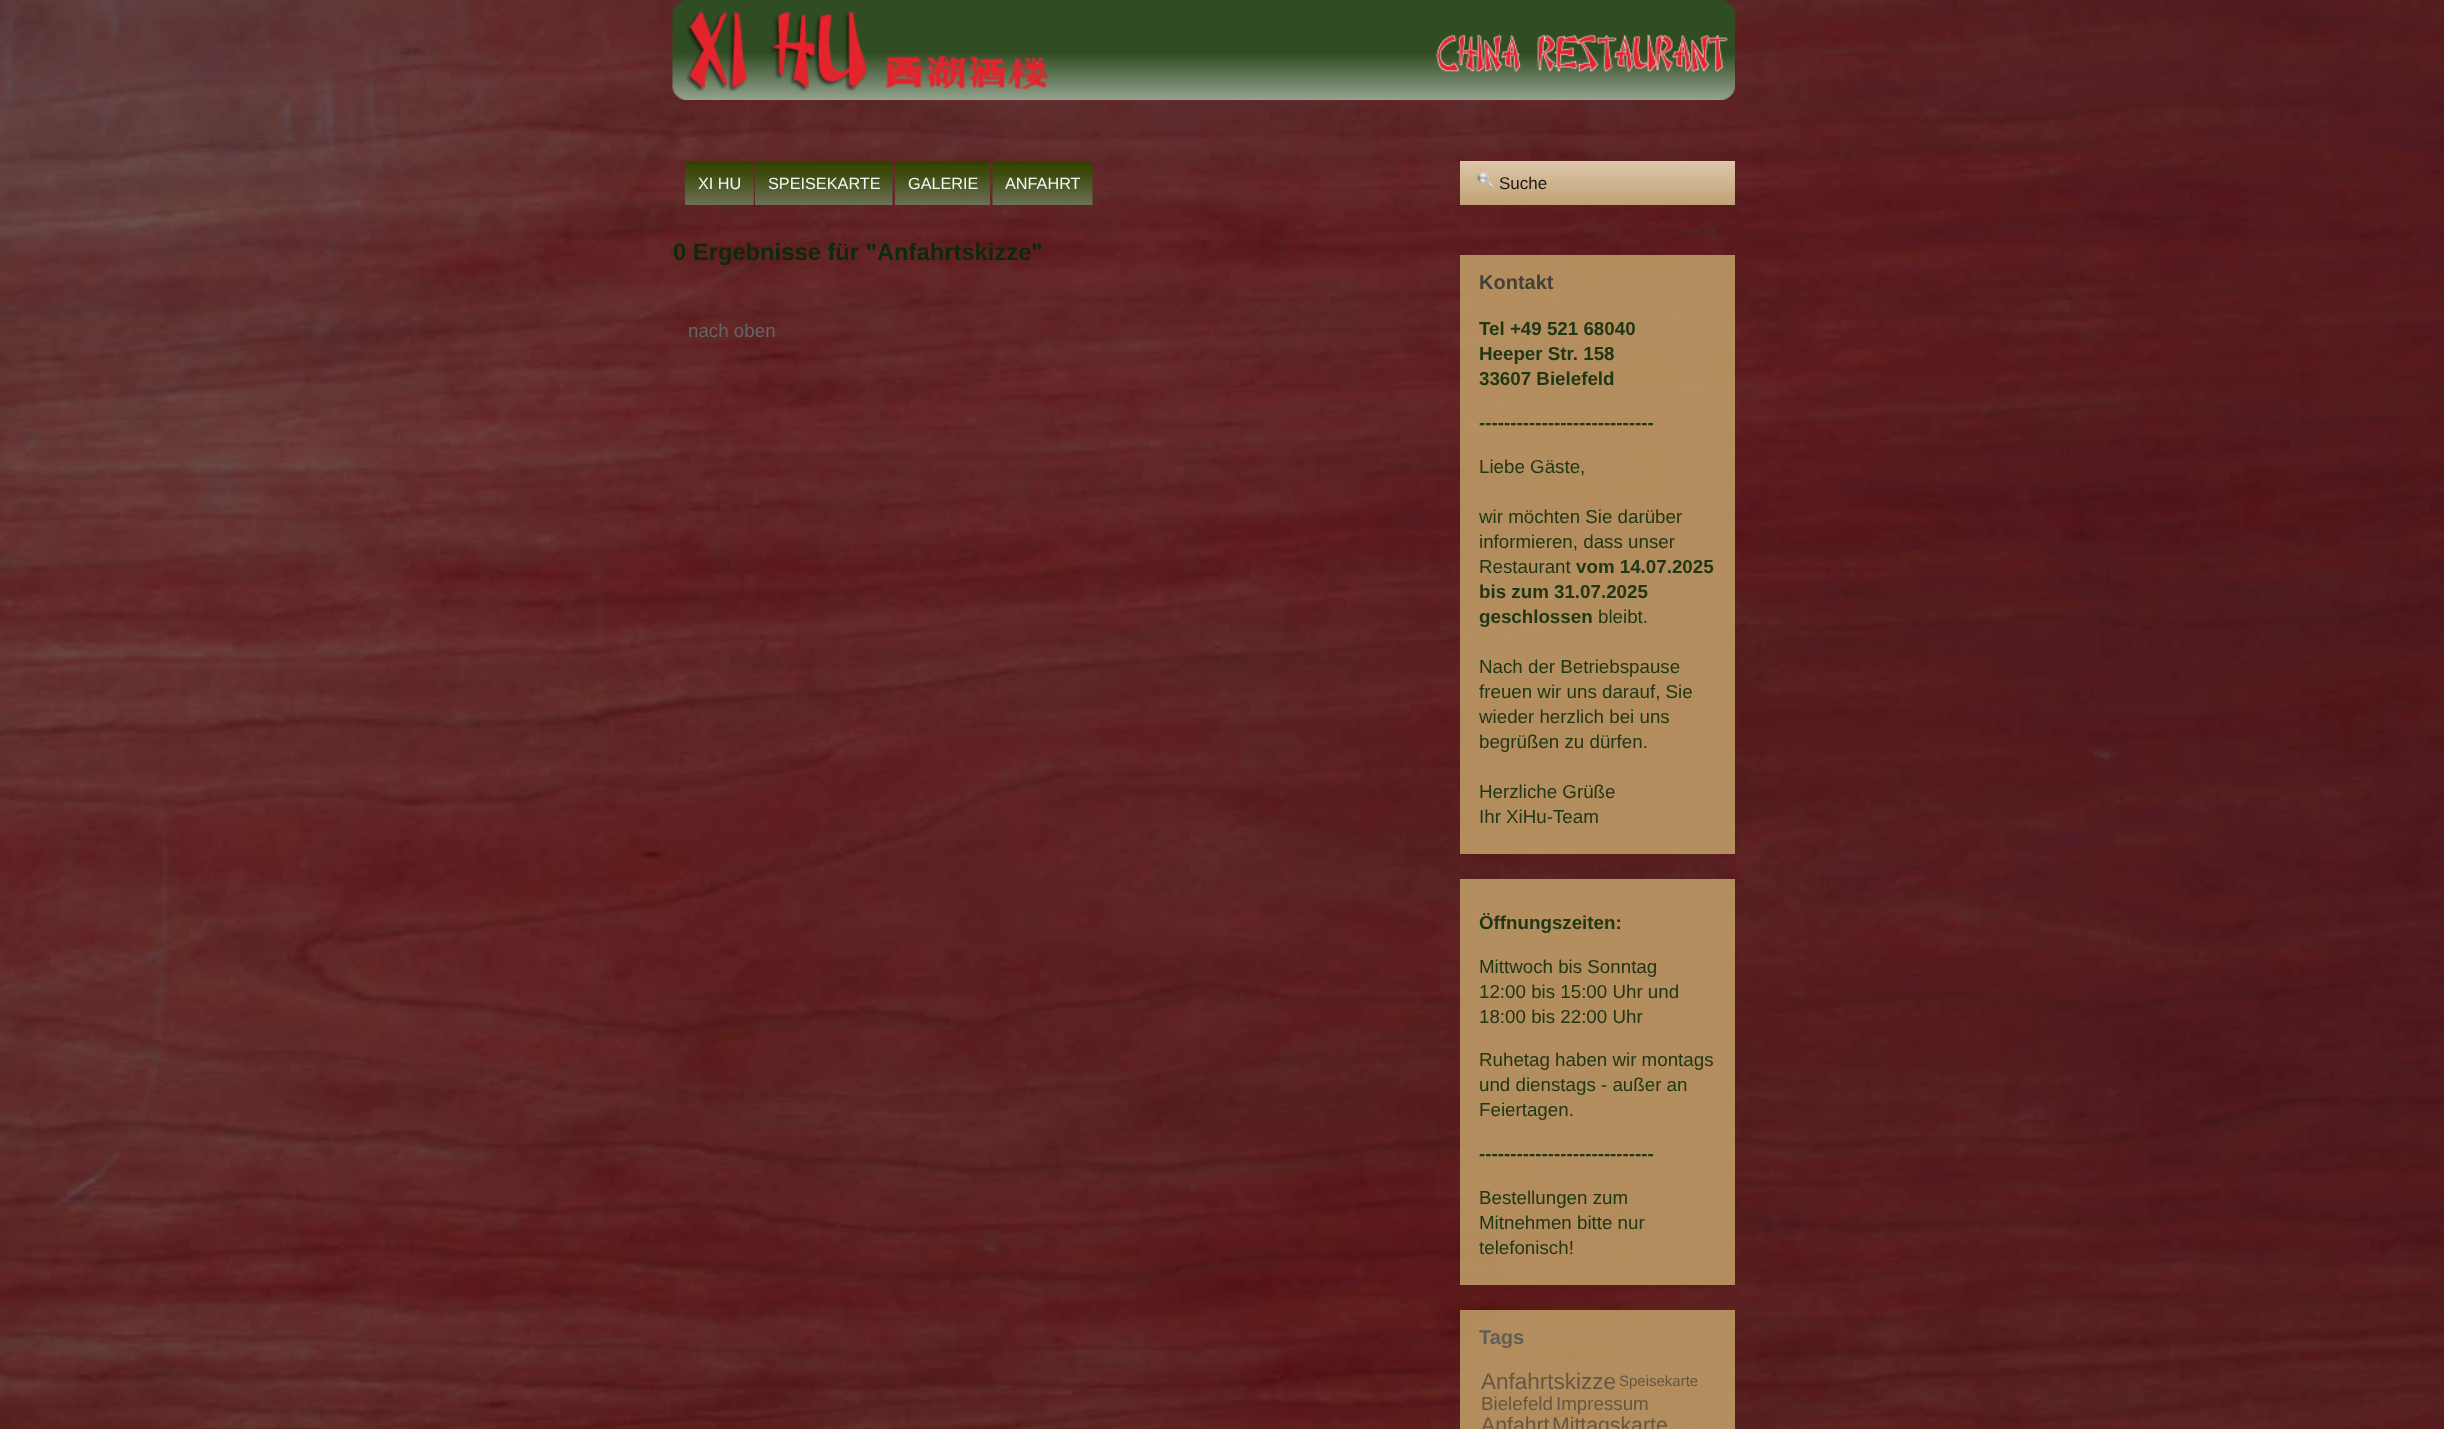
<!DOCTYPE html>
<meta charset="utf-8">
<style>body { margin: 0 } canvas { display: block }</style>
<canvas id="canvas" width="2444" height="1429"></canvas>
<script type="module">
  const canvas = document.getElementById("canvas");
  const g = canvas.getContext("2d");
  g.miterLimit = 4;
  g.fontKerning = "normal";
  function drawText(s, x, y, [font, color]) {
    g.font = font;
    g.fillStyle = color;
    g.fillText(s, x, y);
  }
  function fillBox(x, y, w, h, color) {
    g.fillStyle = color;
    g.fillRect(x, y, w, h);
  }
  async function drawPicture(src, x, y, w, h) {
    const img = new Image();
    img.src = src;
    await img.decode();
    g.drawImage(img, x, y, w, h);
  }

  const s1 = ["16.25px Liberation Sans", "#F6F7F4"];
  const s2 = ["17px Liberation Sans", "#1B1712"];
  const s3 = ["bold 20px Liberation Sans", "#443F39"];
  const s4 = ["bold 18.75px Liberation Sans", "#203715"];
  const s5 = ["18.75px Liberation Sans", "#203715"];
  const s6 = ["bold 20px Liberation Sans", "#615C56"];
  const s7 = ["22.5px Liberation Sans", "#655644"];
  const s8 = ["15px Liberation Sans", "#655644"];
  const s9 = ["18.75px Liberation Sans", "#655644"];
  const s10 = ["21.25px Liberation Sans", "#655644"];
  const s11 = ["bold 23.75px Liberation Sans", "#0A2A0A"];
  const s12 = ["18.75px Liberation Sans", "#666666"];

  fillBox(0, 0, 2444, 1429, "#FFFFFF");
  await drawPicture("pic1.png", 0, 0, 2444, 1429);
  await drawPicture("pic2.png", 672, 0, 1063, 100);
  await drawPicture("pic3.png", 685, 161, 69, 44);
  await drawPicture("pic4.png", 755, 161, 138, 44);
  await drawPicture("pic5.png", 895, 161, 95, 44);
  await drawPicture("pic6.png", 992, 161, 101, 44);
  drawText("XI HU", 698, 189, s1);
  drawText("SPEISEKARTE", 768, 189, s1);
  drawText("GALERIE", 908, 189, s1);
  drawText("ANFAHRT", 1005, 189, s1);
  fillBox(1460, 161, 275, 44, "rgba(247, 247, 247, 0.87)");
  await drawPicture("pic7.png", 1460, 161, 275, 44);
  drawText("Suche", 1499, 189, s2);
  fillBox(1460, 255, 275, 599, "rgba(193, 158, 103, 0.87)");
  drawText("Kontakt", 1479, 289, s3);
  drawText("Tel +49 521 68040", 1479, 335, s4);
  drawText("Heeper Str. 158", 1479, 360, s4);
  drawText("33607 Bielefeld", 1479, 385, s4);
  drawText("----------------------------", 1479, 429, s4);
  drawText("Liebe Gäste,", 1479, 473, s5);
  drawText("wir möchten Sie darüber", 1479, 523, s5);
  drawText("informieren, dass unser", 1479, 548, s5);
  drawText("Restaurant", 1479, 573, s5);
  drawText("vom 14.07.2025", 1576, 573, s4);
  drawText("bis zum 31.07.2025", 1479, 598, s4);
  drawText("geschlossen", 1479, 623, s4);
  drawText("bleibt.", 1598, 623, s5);
  drawText("Nach der Betriebspause", 1479, 673, s5);
  drawText("freuen wir uns darauf, Sie", 1479, 698, s5);
  drawText("wieder herzlich bei uns", 1479, 723, s5);
  drawText("begrüßen zu dürfen.", 1479, 748, s5);
  drawText("Herzliche Grüße", 1479, 798, s5);
  drawText("Ihr XiHu-Team", 1479, 823, s5);
  fillBox(1460, 879, 275, 406, "rgba(193, 158, 103, 0.87)");
  drawText("Öffnungszeiten:", 1479, 929, s4);
  drawText("Mittwoch bis Sonntag", 1479, 973, s5);
  drawText("12:00 bis 15:00 Uhr und", 1479, 998, s5);
  drawText("18:00 bis 22:00 Uhr", 1479, 1023, s5);
  drawText("Ruhetag haben wir montags", 1479, 1066, s5);
  drawText("und dienstags - außer an", 1479, 1091, s5);
  drawText("Feiertagen.", 1479, 1116, s5);
  drawText("----------------------------", 1479, 1160, s4);
  drawText("Bestellungen zum", 1479, 1204, s5);
  drawText("Mitnehmen bitte nur", 1479, 1229, s5);
  drawText("telefonisch!", 1479, 1254, s5);
  fillBox(1460, 1310, 275, 119, "rgba(193, 158, 103, 0.87)");
  drawText("Tags", 1479, 1344, s6);
  drawText("Anfahrtskizze", 1481, 1389, s7);
  drawText("Speisekarte", 1619, 1386, s8);
  drawText("Bielefeld", 1481, 1410, s9);
  drawText("Impressum", 1556, 1410, s9);
  drawText("Anfahrt", 1481, 1432, s10);
  drawText("Mittagskarte", 1552, 1432, s10);
  drawText("0 Ergebnisse für \"Anfahrtskizze\"", 673, 260, s11);
  drawText("nach oben", 688, 337, s12);
</script>
